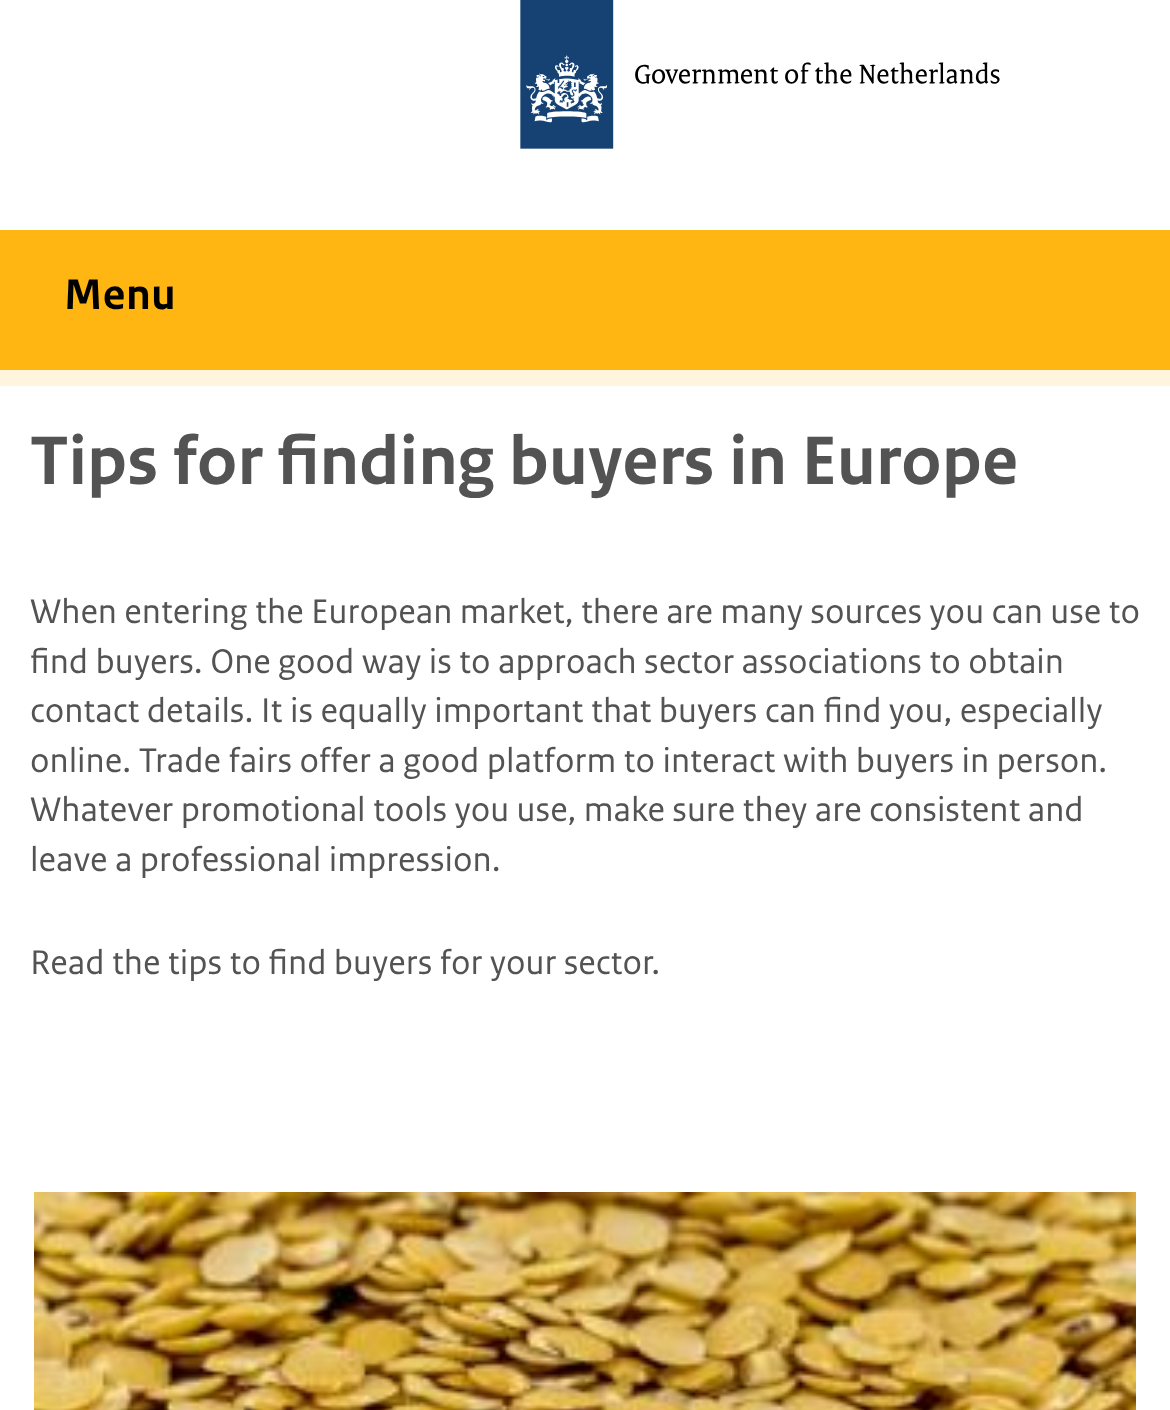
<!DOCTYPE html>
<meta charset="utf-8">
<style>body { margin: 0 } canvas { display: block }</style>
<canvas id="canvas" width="1170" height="1410"></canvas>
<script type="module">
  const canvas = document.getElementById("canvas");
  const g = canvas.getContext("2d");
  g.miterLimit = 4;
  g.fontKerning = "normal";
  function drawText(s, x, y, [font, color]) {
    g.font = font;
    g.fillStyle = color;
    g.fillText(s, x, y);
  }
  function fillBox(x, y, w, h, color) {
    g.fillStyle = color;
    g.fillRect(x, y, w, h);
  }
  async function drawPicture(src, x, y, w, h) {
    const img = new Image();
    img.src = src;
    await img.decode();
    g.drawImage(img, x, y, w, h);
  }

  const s1 = ["bold 45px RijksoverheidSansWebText", "#000000"];
  const s2 = ["bold 72px RijksoverheidSansWebText", "#535353"];
  const s3 = ["36px RijksoverheidSansWebText", "#535353"];

  fillBox(0, 0, 1170, 1410, "#FFFFFF");
  await drawPicture("pic1.png", 520, 0, 480, 149);
  fillBox(0, 230, 1170, 140, "#FFB612");
  fillBox(0, 370, 1170, 16, "#FFF4DC");
  g.letterSpacing = "0.5px";
  drawText("Menu", 64, 309, s1);
  g.letterSpacing = "0px";
  drawText("Tips for finding buyers in Europe", 30, 484, s2);
  drawText("When entering the European market, there are many sources you can use to", 30, 623, s3);
  drawText("find buyers. One good way is to approach sector associations to obtain", 30, 673, s3);
  drawText("contact details. It is equally important that buyers can find you, especially", 30, 722, s3);
  drawText("online. Trade fairs offer a good platform to interact with buyers in person.", 30, 772, s3);
  drawText("Whatever promotional tools you use, make sure they are consistent and", 30, 821, s3);
  drawText("leave a professional impression.", 30, 871, s3);
  drawText("Read the tips to find buyers for your sector.", 30, 974, s3);
  await drawPicture("pic2.png", 34, 1192, 1102, 218);
</script>
